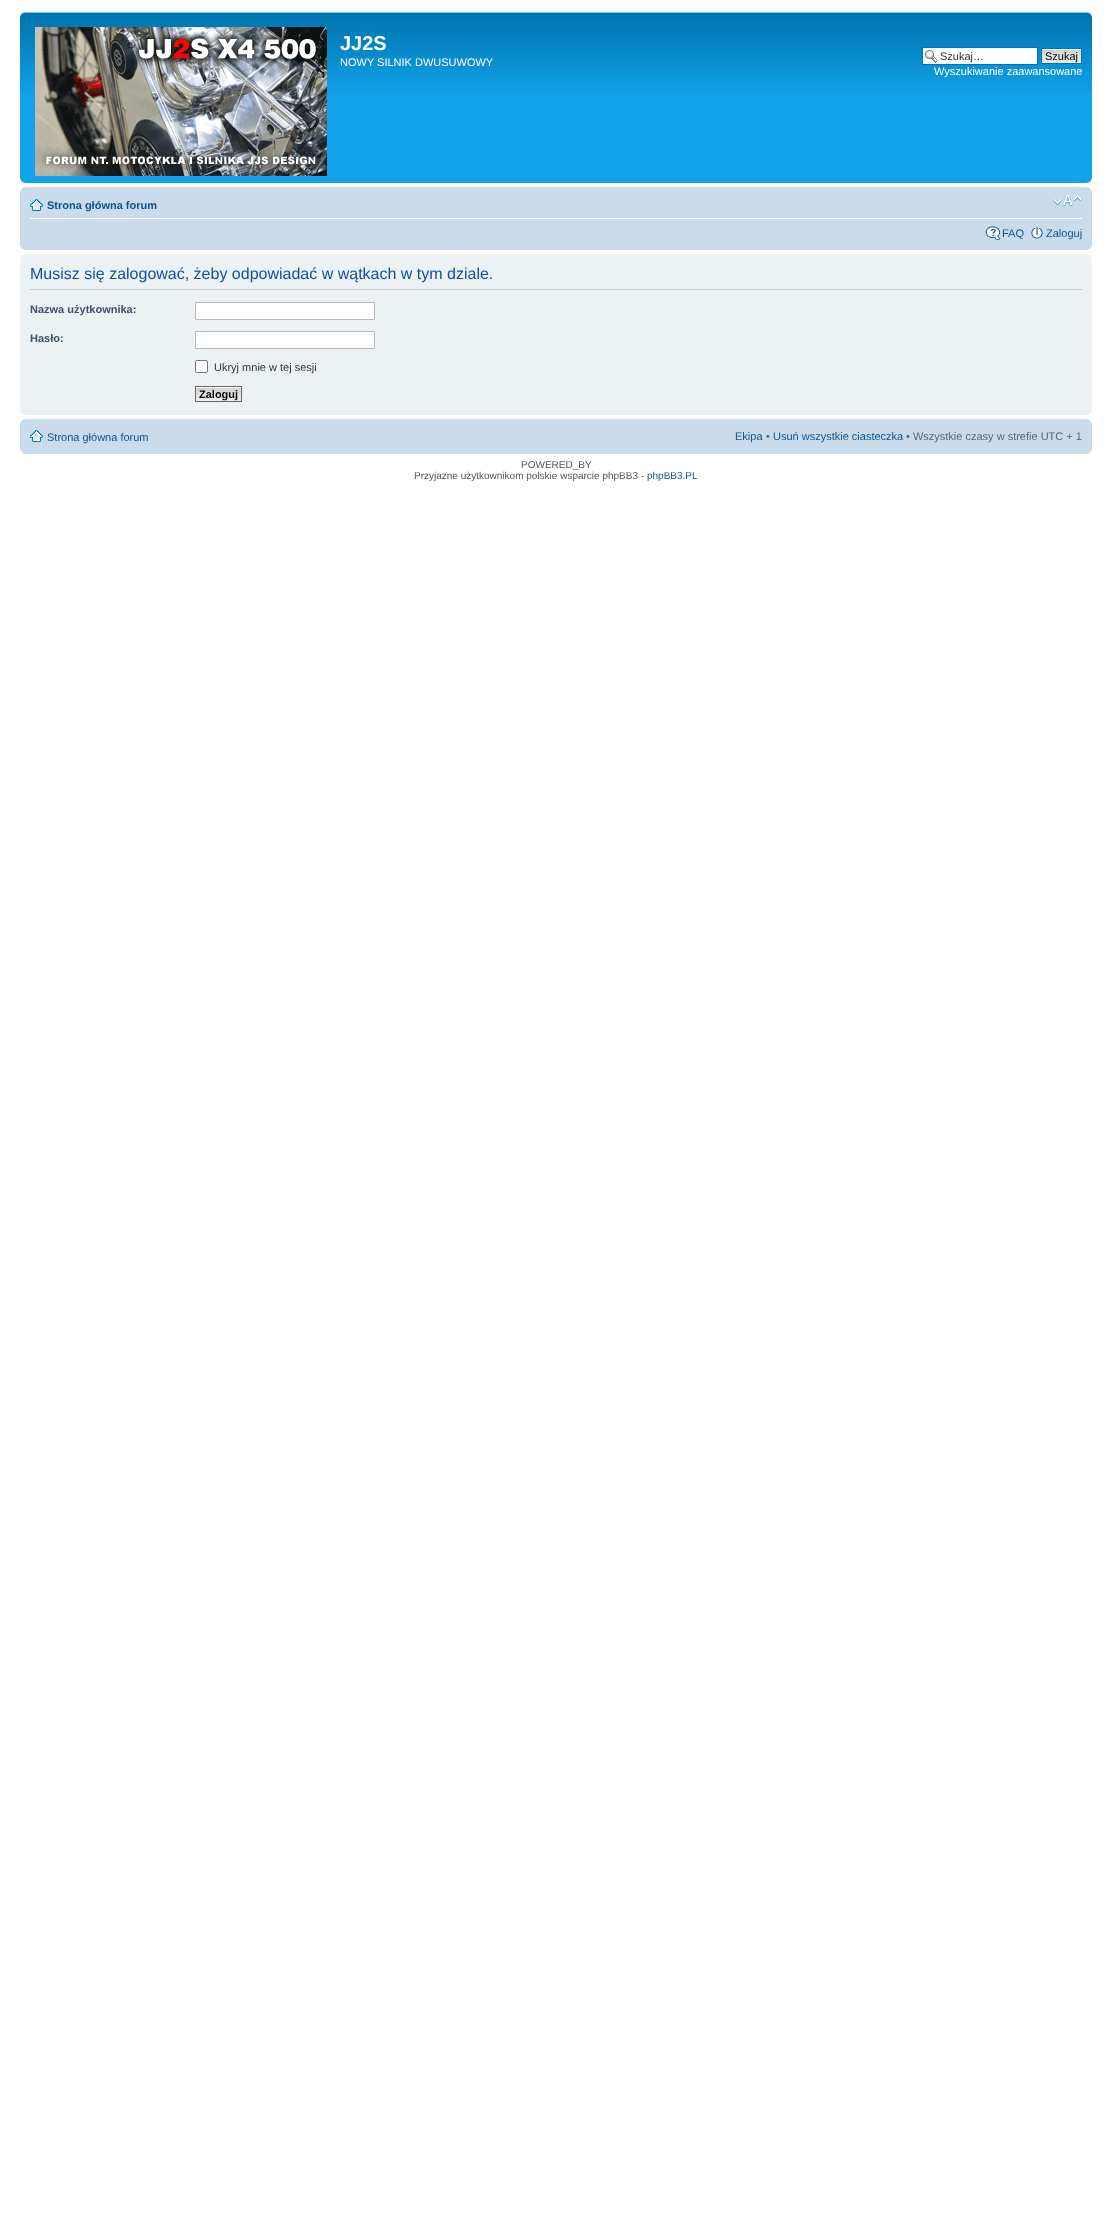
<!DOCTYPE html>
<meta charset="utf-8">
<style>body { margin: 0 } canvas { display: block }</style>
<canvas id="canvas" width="1112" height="2233"></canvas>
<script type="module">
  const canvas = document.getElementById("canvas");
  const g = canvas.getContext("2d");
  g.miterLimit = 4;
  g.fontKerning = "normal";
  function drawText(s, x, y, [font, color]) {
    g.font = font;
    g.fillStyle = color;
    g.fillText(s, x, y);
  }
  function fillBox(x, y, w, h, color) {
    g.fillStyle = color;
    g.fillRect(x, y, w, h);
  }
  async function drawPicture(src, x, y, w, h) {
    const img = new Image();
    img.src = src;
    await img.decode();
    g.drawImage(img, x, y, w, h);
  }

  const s1 = ["bold 20px Liberation Sans", "#FFFFFF"];
  const s2 = ["11px Liberation Sans", "#FFFFFF"];
  const s3 = ["11px Liberation Sans", "#333333"];
  const s4 = ["11px Liberation Sans", "#000000"];
  const s5 = ["bold 11px Liberation Sans", "#105289"];
  const s6 = ["11px Liberation Sans", "#105289"];
  const s7 = ["16px Liberation Sans", "#115098"];
  const s8 = ["bold 11px Liberation Sans", "#425067"];
  const s9 = ["bold 11px Liberation Sans", "#000000"];
  const s10 = ["11px Liberation Sans", "#536482"];
  const s11 = ["10px Liberation Sans", "#555555"];
  const s12 = ["10px Liberation Sans", "#105289"];

  fillBox(0, 0, 1112, 2233, "#FFFFFF");
  fillBox(20, 94, 1072, 89, "#12A3EB");
  await drawPicture("pic1.png", 20, 12, 1072, 82);
  await drawPicture("pic2.png", 20, 12, 5, 5);
  await drawPicture("pic3.png", 1087, 12, 5, 5);
  await drawPicture("pic4.png", 35, 27, 292, 149);
  drawText("JJ2S", 340, 50, s1);
  drawText("NOWY SILNIK DWUSUWOWY", 340, 66, s2);
  fillBox(923, 48, 114, 16, "#FFFFFF");
  await drawPicture("pic5.png", 925, 50, 13, 13);
  g.strokeStyle = "#0075B0";
  g.strokeRect(922.5, 47.5, 115, 17);
  drawText("Szukaj…", 940, 60, s3);
  await drawPicture("pic6.png", 1042, 49, 39, 14);
  g.strokeRect(1041.5, 48.5, 40, 15);
  drawText("Szukaj", 1045, 60, s4);
  drawText("Wyszukiwanie zaawansowane", 934, 75, s2);
  await drawPicture("pic7.png", 20, 178, 5, 5);
  await drawPicture("pic8.png", 1087, 178, 5, 5);
  fillBox(20, 187, 1072, 63, "#CADCEB");
  await drawPicture("pic9.png", 20, 187, 5, 5);
  await drawPicture("pic10.png", 1087, 187, 5, 5);
  fillBox(30, 218, 1052, 1, "#FFFFFF");
  await drawPicture("pic11.png", 30, 199, 13, 12);
  drawText("Strona główna forum", 47, 209, s5);
  await drawPicture("pic12.png", 1053, 195, 29, 12);
  await drawPicture("pic13.png", 985, 226, 16, 14);
  drawText("FAQ", 1002, 237, s6);
  await drawPicture("pic14.png", 1031, 227, 12, 12);
  drawText("Zaloguj", 1046, 237, s6);
  await drawPicture("pic15.png", 20, 245, 5, 5);
  await drawPicture("pic16.png", 1087, 245, 5, 5);
  fillBox(20, 254, 1072, 161, "#ECF1F3");
  await drawPicture("pic17.png", 20, 254, 5, 5);
  await drawPicture("pic18.png", 1087, 254, 5, 5);
  fillBox(30, 289, 1052, 1, "#CCCCCC");
  drawText("Musisz się zalogować, żeby odpowiadać w wątkach w tym dziale.", 30, 279, s7);
  drawText("Nazwa użytkownika:", 30, 313, s8);
  g.fillStyle = "#FFFFFF";
  g.beginPath();
  g.rect(195.5, 302.5, 179, 17);
  g.fill();
  g.strokeStyle = "#B4BAC0";
  g.stroke();
  drawText("Hasło:", 30, 342, s8);
  g.fillStyle = "#FFFFFF";
  g.beginPath();
  g.rect(195.5, 331.5, 179, 17);
  g.fill();
  g.stroke();
  g.beginPath();
  g.roundRect(195.5, 360.5, 12, 12, 1.5);
  g.fill();
  g.strokeStyle = "#767676";
  g.stroke();
  drawText("Ukryj mnie w tej sesji", 214, 371, s3);
  await drawPicture("pic19.png", 196, 387, 45, 14);
  g.strokeStyle = "#666666";
  g.strokeRect(195.5, 386.5, 46, 15);
  drawText("Zaloguj", 199, 398, s9);
  await drawPicture("pic20.png", 20, 410, 5, 5);
  await drawPicture("pic21.png", 1087, 410, 5, 5);
  fillBox(20, 419, 1072, 35, "#CADCEB");
  await drawPicture("pic9.png", 20, 419, 5, 5);
  await drawPicture("pic10.png", 1087, 419, 5, 5);
  await drawPicture("pic11.png", 30, 430, 13, 12);
  drawText("Strona główna forum", 47, 441, s6);
  drawText("Ekipa", 735, 440, s6);
  drawText("•", 766, 440, s10);
  drawText("Usuń wszystkie ciasteczka", 773, 440, s6);
  drawText("• Wszystkie czasy w strefie UTC + 1", 906, 440, s10);
  await drawPicture("pic15.png", 20, 449, 5, 5);
  await drawPicture("pic16.png", 1087, 449, 5, 5);
  drawText("POWERED_BY", 521, 468, s11);
  drawText("Przyjazne użytkownikom polskie wsparcie phpBB3 -", 414, 479, s11);
  drawText("phpBB3.PL", 647, 479, s12);
</script>
